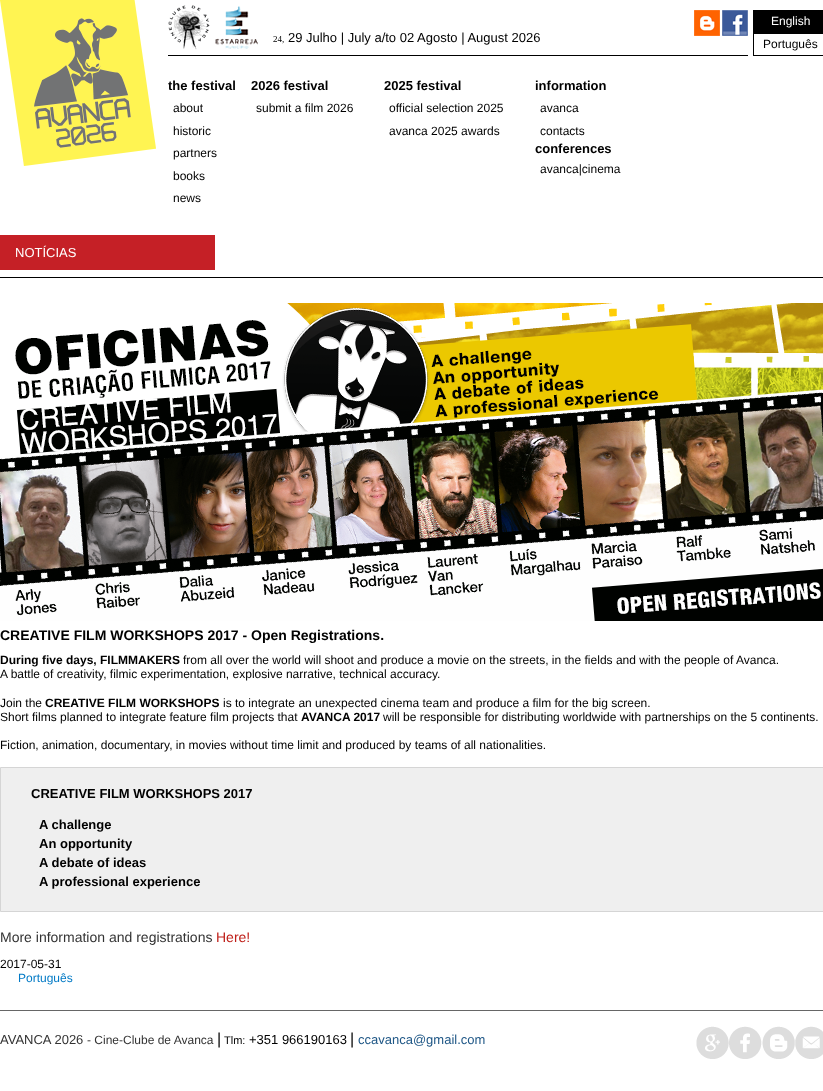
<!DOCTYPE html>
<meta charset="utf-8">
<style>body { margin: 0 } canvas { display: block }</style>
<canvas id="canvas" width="823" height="1091"></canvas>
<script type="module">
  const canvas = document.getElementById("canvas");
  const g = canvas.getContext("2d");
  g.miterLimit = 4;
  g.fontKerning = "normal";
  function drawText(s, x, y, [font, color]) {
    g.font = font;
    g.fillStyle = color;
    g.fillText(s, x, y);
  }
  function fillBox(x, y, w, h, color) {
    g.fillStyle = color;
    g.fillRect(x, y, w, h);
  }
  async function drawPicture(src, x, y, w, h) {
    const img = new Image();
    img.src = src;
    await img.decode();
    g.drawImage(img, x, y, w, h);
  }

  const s1 = ["9px Liberation Serif", "#000000"];
  const s2 = ["13px Liberation Sans", "#000000"];
  const s3 = ["12px Liberation Sans", "#FFFFFF"];
  const s4 = ["12px Liberation Sans", "#000000"];
  const s5 = ["bold 13px Liberation Sans", "#000000"];
  const s6 = ["13px Liberation Sans", "#FFFFFF"];
  const s7 = ["bold 14px Liberation Sans", "#000000"];
  const s8 = ["bold 12px Liberation Sans", "#000000"];
  const s9 = ["14px Liberation Sans", "#333333"];
  const s10 = ["14px Liberation Sans", "#BF1F19"];
  const s11 = ["12px Liberation Sans", "#027AC6"];
  const s12 = ["13px Liberation Sans", "#333333"];
  const s13 = ["12px Liberation Sans", "#333333"];
  const s14 = ["16px Liberation Sans", "#000000"];
  const s15 = ["11px Liberation Sans", "#000000"];
  const s16 = ["13px Liberation Sans", "#1F5786"];

  fillBox(0, 0, 823, 1091, "#FFFFFF");
  await drawPicture("pic1.png", 0, 0, 156, 166);
  fillBox(168, 55, 580, 1, "#000000");
  await drawPicture("pic2.png", 168, 5, 90, 45);
  await drawPicture("pic3.png", 694, 10, 26, 26);
  await drawPicture("pic4.png", 722, 10, 26, 26);
  drawText("24,", 273, 42, s1);
  drawText("29", 288, 42, s2);
  drawText("Julho | July a/to 02 Agosto | August 2026", 306, 42, s2);
  g.strokeStyle = "#000000";
  g.strokeRect(753.5, 10.5, 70, 22);
  fillBox(754, 11, 69, 21, "#000000");
  drawText("English", 771, 25, s3);
  g.strokeRect(753.5, 33.5, 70, 22);
  drawText("Português", 763, 48, s4);
  drawText("the festival", 168, 90, s5);
  drawText("about", 173, 112, s4);
  drawText("historic", 173, 135, s4);
  drawText("partners", 173, 157, s4);
  drawText("books", 173, 180, s4);
  drawText("news", 173, 202, s4);
  drawText("2026 festival", 251, 90, s5);
  drawText("submit a film 2026", 256, 112, s4);
  drawText("2025 festival", 384, 90, s5);
  drawText("official selection 2025", 389, 112, s4);
  drawText("avanca 2025 awards", 389, 135, s4);
  drawText("information", 535, 90, s5);
  drawText("avanca", 540, 112, s4);
  drawText("contacts", 540, 135, s4);
  drawText("conferences", 535, 153, s5);
  drawText("avanca|cinema", 540, 173, s4);
  fillBox(0, 235, 215, 35, "#C52026");
  drawText("NOTÍCIAS", 15, 257, s6);
  fillBox(0, 277, 823, 1, "#000000");
  await drawPicture("pic5.png", 0, 303, 823, 318);
  drawText("CREATIVE FILM WORKSHOPS 2017 - Open Registrations.", 0, 640, s7);
  drawText("During five days, FILMMAKERS", 0, 664, s8);
  drawText("from all over the world will shoot and produce a movie on the streets, in the fields and with the people of Avanca.", 183, 664, s4);
  drawText("A battle of creativity, filmic experimentation, explosive narrative, technical accuracy.", 0, 678, s4);
  drawText("Join the", 0, 707, s4);
  drawText("CREATIVE FILM WORKSHOPS", 45, 707, s8);
  drawText("is to integrate an unexpected cinema team and produce a film for the big screen.", 223, 707, s4);
  drawText("Short films planned to integrate feature film projects that", 0, 721, s4);
  drawText("AVANCA 2017", 301, 721, s8);
  drawText("will be responsible for distributing worldwide with partnerships on the 5 continents.", 383, 721, s4);
  drawText("Fiction, animation, documentary, in movies without time limit and produced by teams of all nationalities.", 0, 749, s4);
  g.fillStyle = "#EFEFEF";
  g.beginPath();
  g.rect(0.5, 767.5, 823, 144);
  g.fill();
  g.strokeStyle = "#D5D5D5";
  g.stroke();
  drawText("CREATIVE FILM WORKSHOPS 2017", 31, 798, s5);
  drawText("A challenge", 39, 829, s5);
  drawText("An opportunity", 39, 848, s5);
  drawText("A debate of ideas", 39, 867, s5);
  drawText("A professional experience", 39, 886, s5);
  drawText("More information and registrations", 0, 942, s9);
  drawText("Here!", 216, 942, s10);
  drawText("2017-05-31", 0, 968, s4);
  drawText("Português", 18, 982, s11);
  fillBox(0, 1010, 823, 1, "#666666");
  drawText("AVANCA 2026", 0, 1044, s12);
  drawText("- Cine-Clube de Avanca", 87, 1044, s13);
  drawText("|", 217, 1044, s14);
  drawText("Tlm:", 224, 1044, s15);
  drawText("+351 966190163", 249, 1044, s2);
  drawText("|", 350, 1044, s14);
  drawText("ccavanca@gmail.com", 358, 1044, s16);
  await drawPicture("pic6.png", 696, 1026, 33, 33);
  await drawPicture("pic7.png", 729, 1026, 33, 33);
  await drawPicture("pic8.png", 762, 1026, 33, 33);
  await drawPicture("pic9.png", 795, 1026, 28, 33);
</script>
